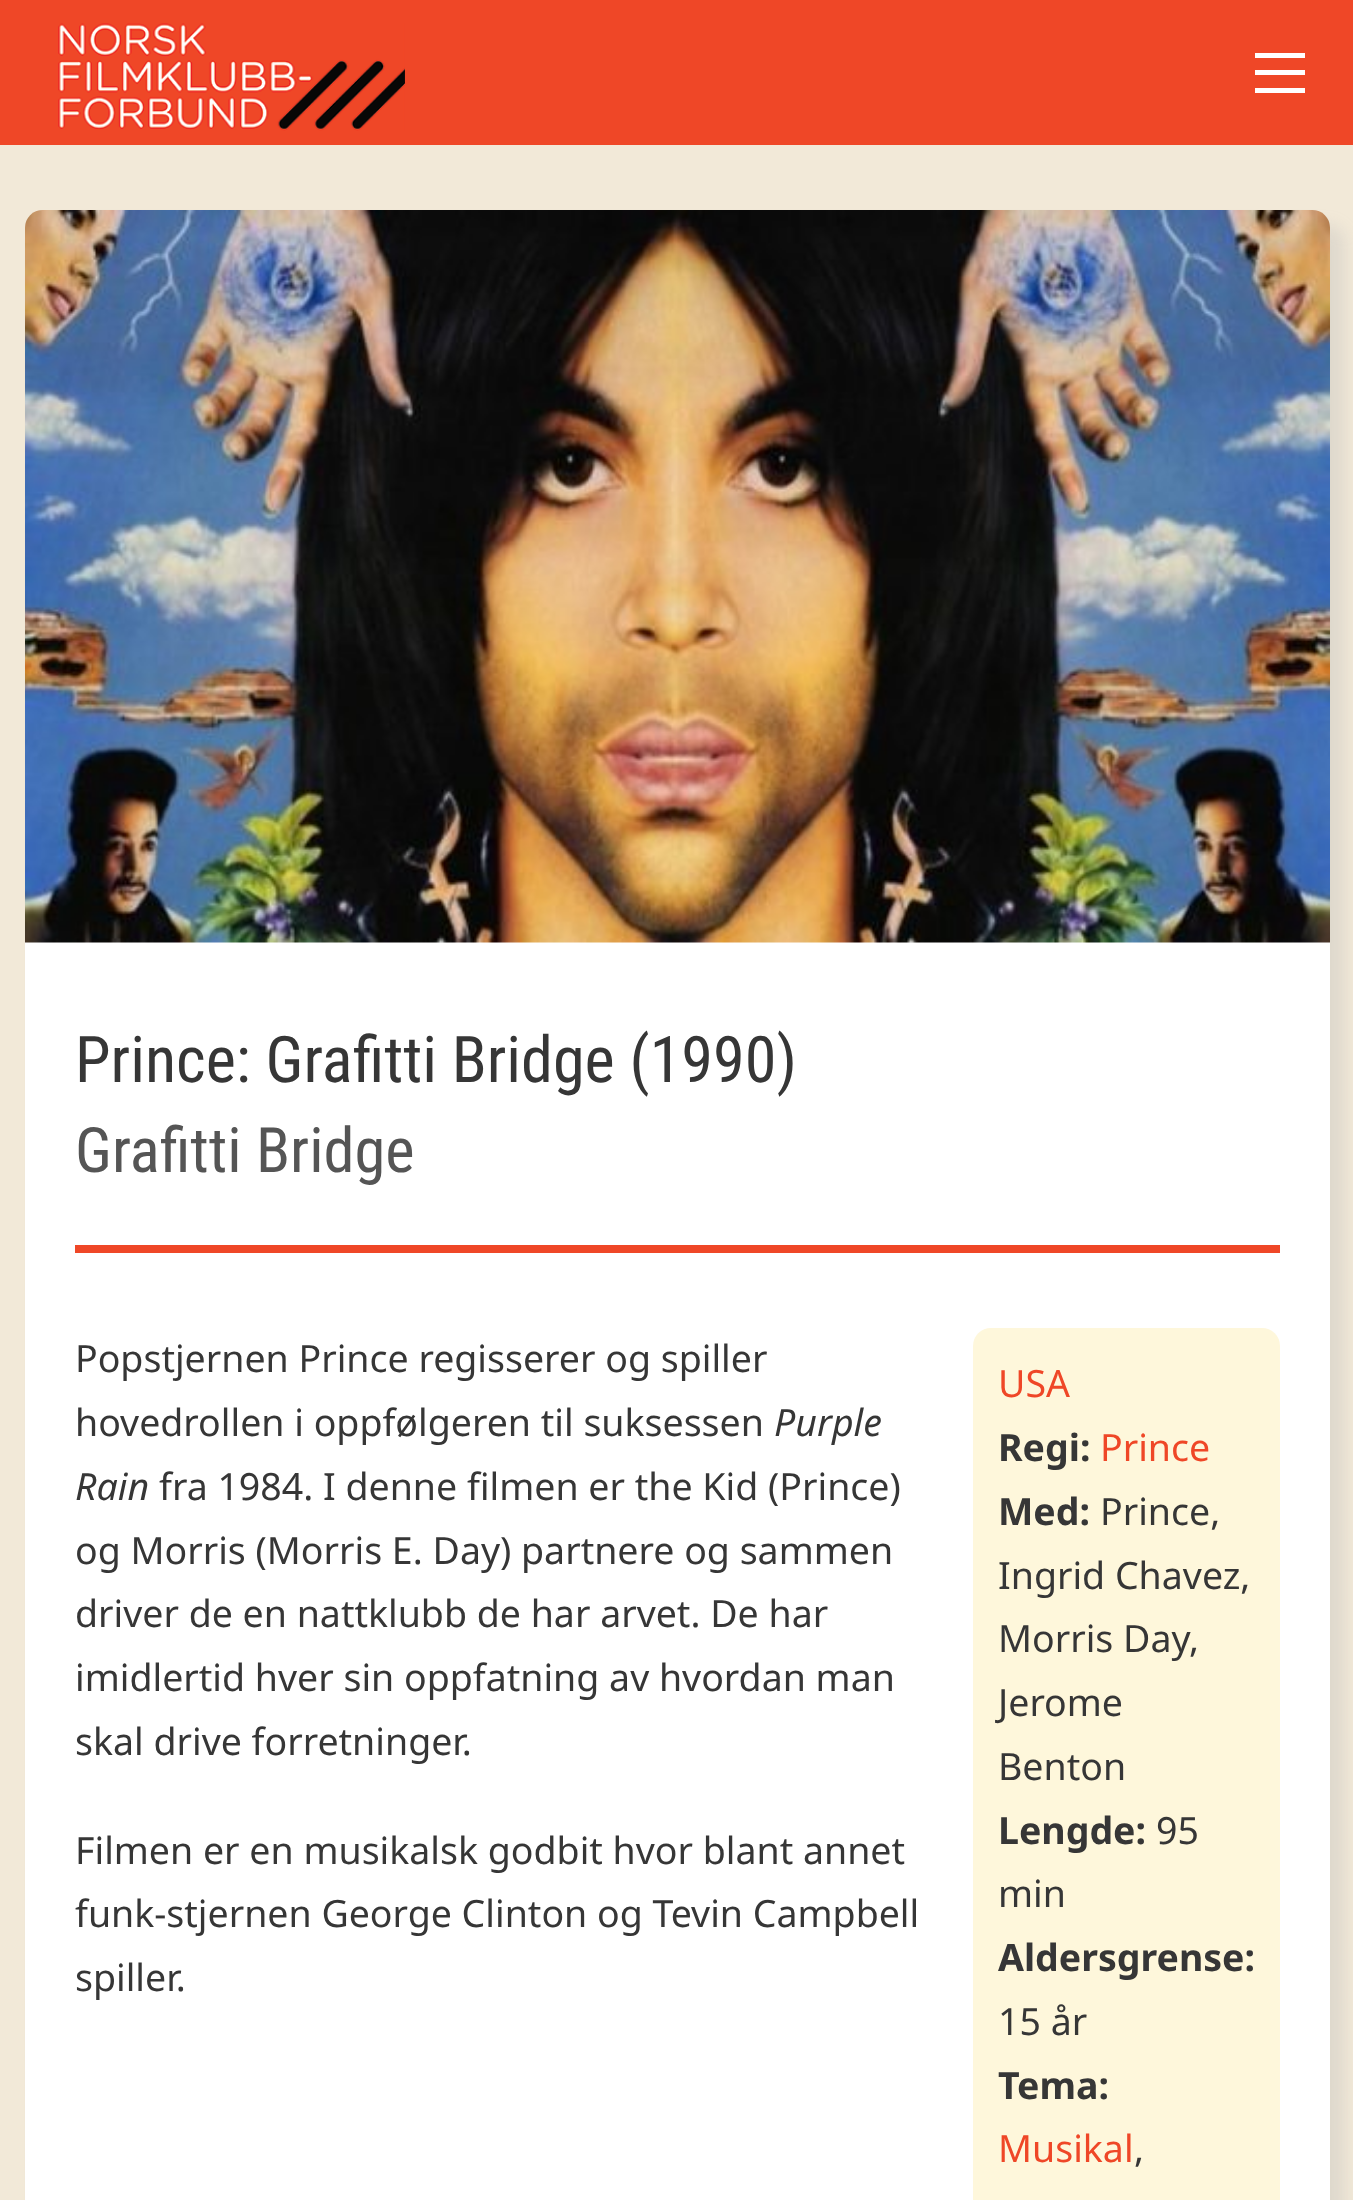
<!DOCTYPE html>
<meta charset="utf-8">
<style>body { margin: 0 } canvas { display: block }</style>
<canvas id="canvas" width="1353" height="2200"></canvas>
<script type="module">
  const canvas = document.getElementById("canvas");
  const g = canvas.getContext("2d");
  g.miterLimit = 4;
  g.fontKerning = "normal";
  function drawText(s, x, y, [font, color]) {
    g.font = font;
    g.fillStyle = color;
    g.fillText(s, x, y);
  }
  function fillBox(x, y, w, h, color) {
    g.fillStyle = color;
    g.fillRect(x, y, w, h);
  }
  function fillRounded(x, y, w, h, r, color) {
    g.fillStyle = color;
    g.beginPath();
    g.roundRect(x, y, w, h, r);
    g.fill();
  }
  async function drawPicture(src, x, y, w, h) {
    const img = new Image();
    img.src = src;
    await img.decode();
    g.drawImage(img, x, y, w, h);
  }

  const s1 = ["64.25px Roboto Condensed", "#363636"];
  const s2 = ["62.5px Roboto Condensed", "#555555"];
  const s3 = ["37.5px Noto Sans", "#363636"];
  const s4 = ["italic 37.5px Noto Sans", "#363636"];
  const s5 = ["37.5px Noto Sans", "#EF4727"];
  const s6 = ["bold 37.5px Noto Sans", "#363636"];

  fillBox(0, 0, 1353, 2200, "#F2E9D8");
  fillBox(0, 0, 1353, 145, "#EF4727");
  await drawPicture("pic1.png", 58, 23, 347, 108);
  fillBox(1255, 53, 50, 5, "#FFFFFF");
  fillBox(1255, 70, 50, 5, "#FFFFFF");
  fillBox(1255, 88, 50, 5, "#FFFFFF");
  g.fillStyle = "rgba(149, 157, 165, 0.2)";
  g.filter = "blur(7.5px)";
  g.beginPath();
  g.roundRect(40, 225, 1305, 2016, 18);
  g.fill();
  g.filter = "none";
  fillRounded(25, 210, 1305, 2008, 18, "#FFFFFF");
  await drawPicture("pic2.png", 25, 210, 1305, 733);
  drawText("Prince: Grafitti Bridge (1990)", 75, 1082, s1);
  drawText("Grafitti Bridge", 75, 1172, s2);
  fillBox(75, 1245, 1205, 8, "#EF4727");
  drawText("Popstjernen Prince regisserer og spiller", 75, 1372, s3);
  drawText("hovedrollen i oppfølgeren til suksessen", 75, 1436, s3);
  drawText("Purple", 774, 1436, s4);
  drawText("Rain", 75, 1500, s4);
  drawText("fra 1984. I denne filmen er the Kid (Prince)", 159, 1500, s3);
  drawText("og Morris (Morris E. Day) partnere og sammen", 75, 1564, s3);
  drawText("driver de en nattklubb de har arvet. De har", 75, 1627, s3);
  drawText("imidlertid hver sin oppfatning av hvordan man", 75, 1691, s3);
  drawText("skal drive forretninger.", 75, 1755, s3);
  drawText("Filmen er en musikalsk godbit hvor blant annet", 75, 1864, s3);
  drawText("funk-stjernen George Clinton og Tevin Campbell", 75, 1927, s3);
  drawText("spiller.", 75, 1991, s3);
  fillRounded(973, 1328, 307, 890, 18, "#FEF7DB");
  drawText("USA", 998, 1397, s5);
  drawText("Regi:", 998, 1461, s6);
  drawText("Prince", 1100, 1461, s5);
  drawText("Med:", 998, 1525, s6);
  drawText("Prince,", 1100, 1525, s3);
  drawText("Ingrid Chavez,", 998, 1589, s3);
  drawText("Morris Day,", 998, 1652, s3);
  drawText("Jerome", 998, 1716, s3);
  drawText("Benton", 998, 1780, s3);
  drawText("Lengde:", 998, 1844, s6);
  drawText("95", 1156, 1844, s3);
  drawText("min", 998, 1907, s3);
  drawText("Aldersgrense:", 998, 1971, s6);
  drawText("15 år", 998, 2035, s3);
  drawText("Tema:", 998, 2099, s6);
  drawText("Musikal", 998, 2162, s5);
  drawText(",", 1134, 2162, s3);
</script>
